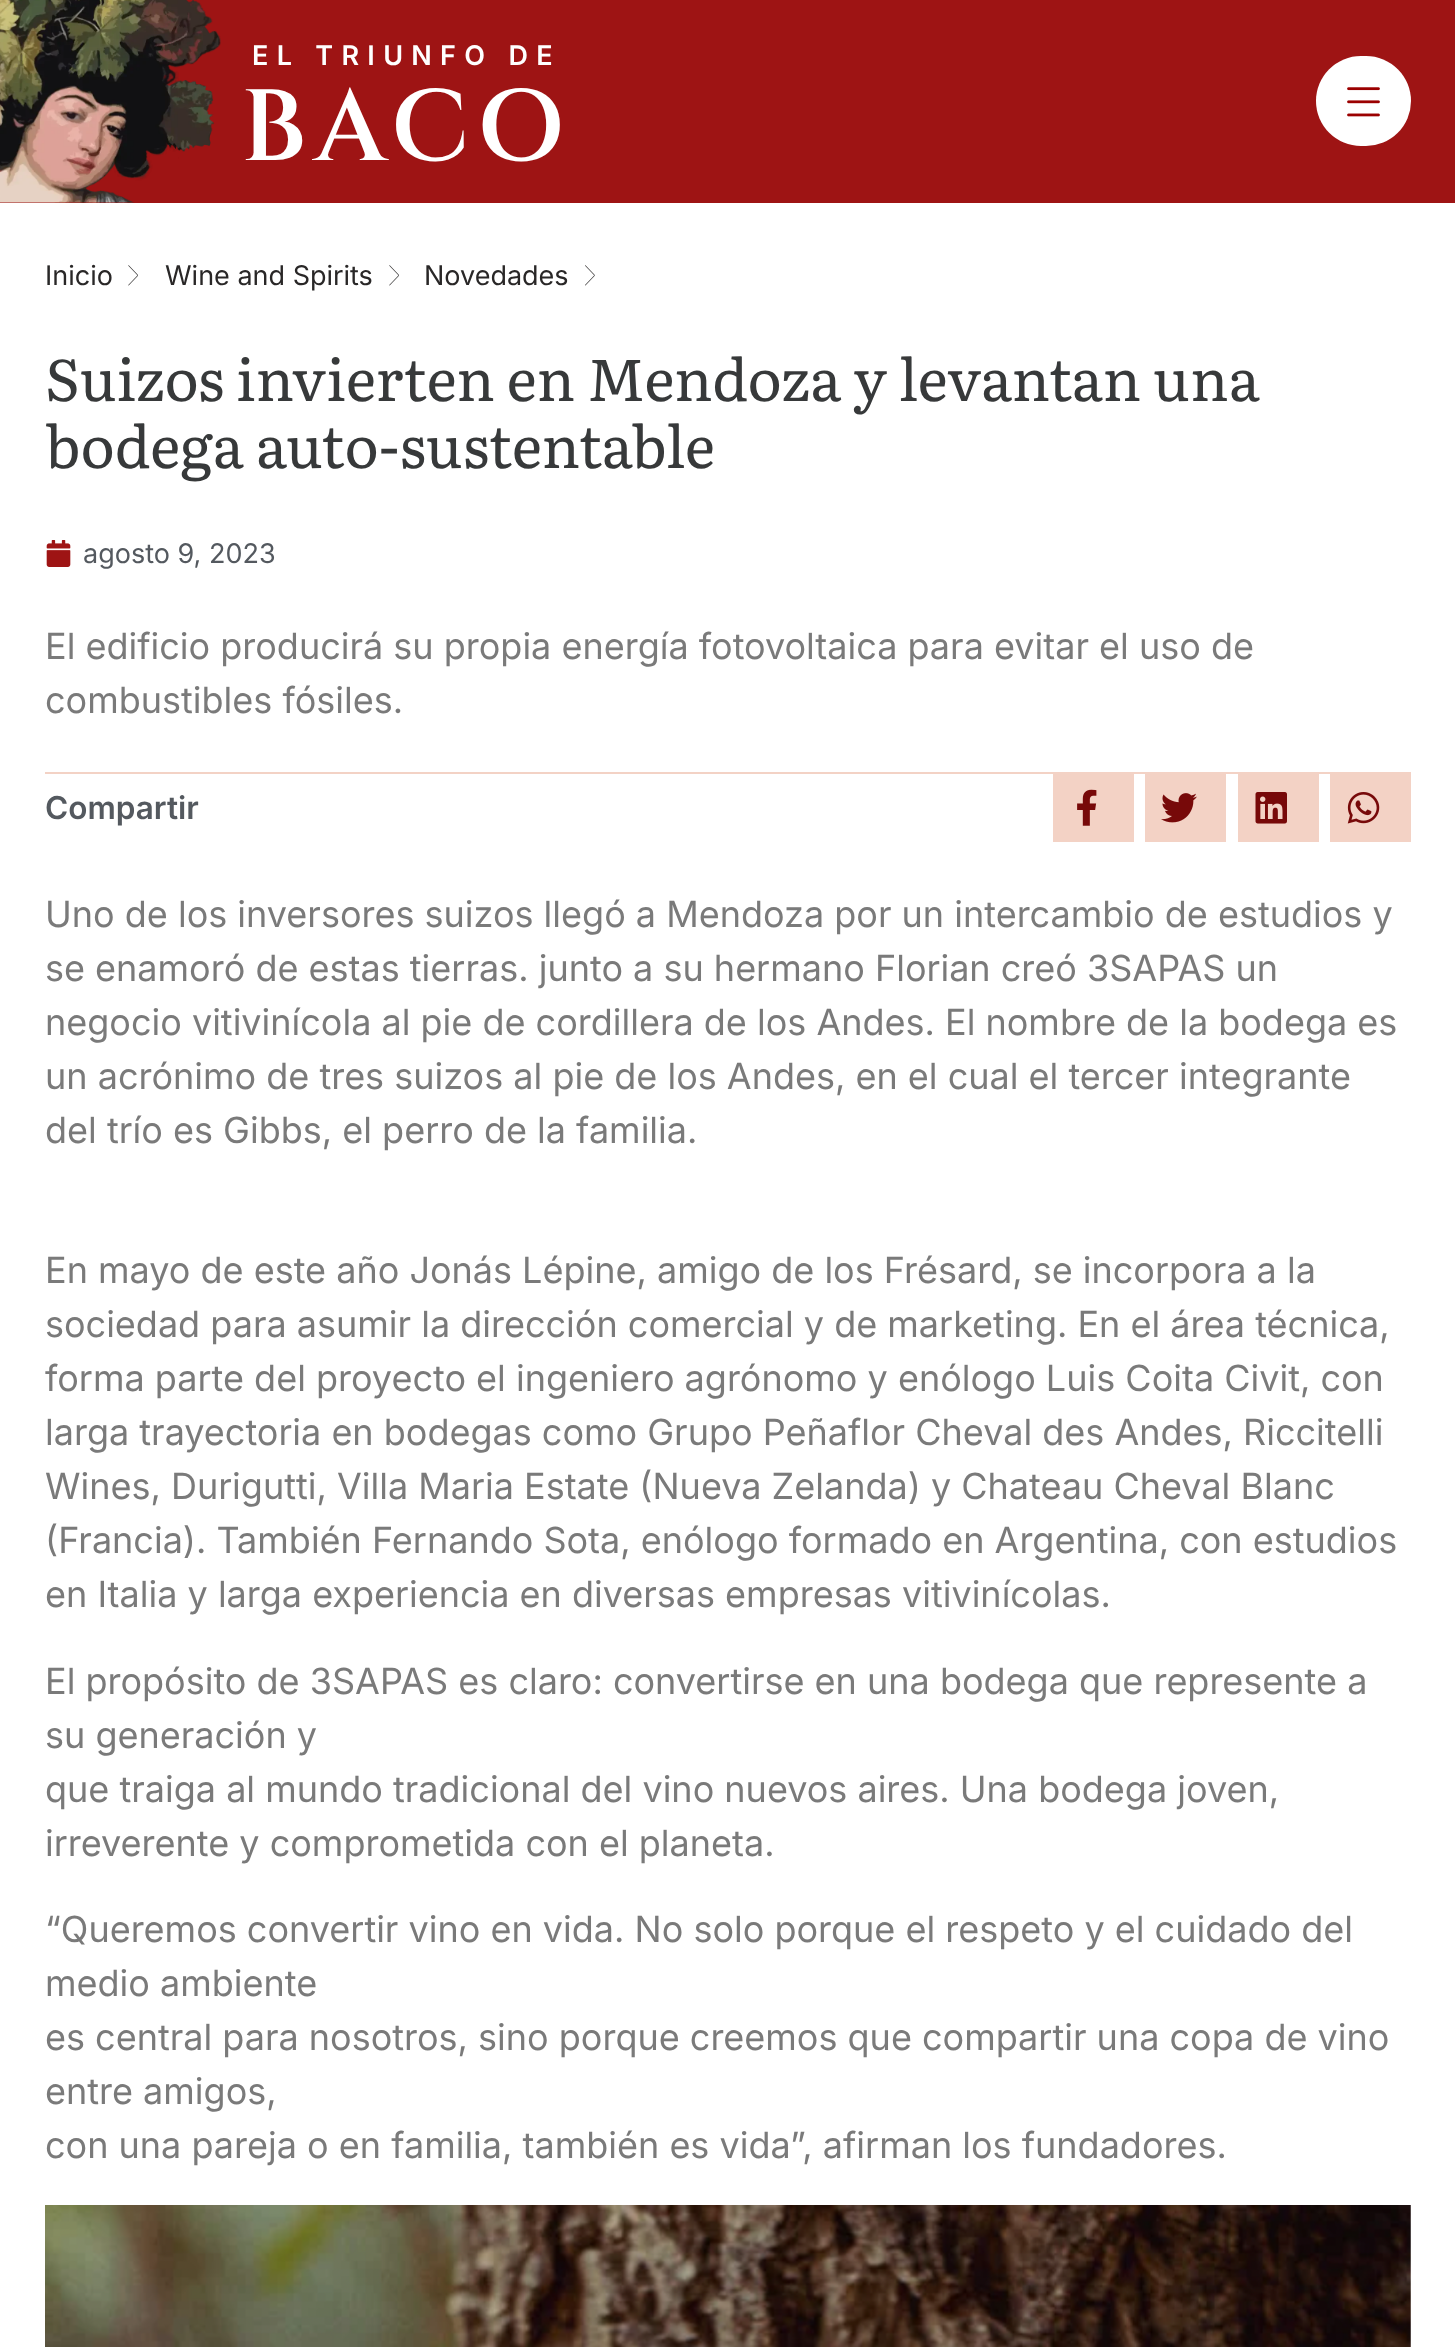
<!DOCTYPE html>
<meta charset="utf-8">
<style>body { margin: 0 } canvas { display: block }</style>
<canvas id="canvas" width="1455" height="2347"></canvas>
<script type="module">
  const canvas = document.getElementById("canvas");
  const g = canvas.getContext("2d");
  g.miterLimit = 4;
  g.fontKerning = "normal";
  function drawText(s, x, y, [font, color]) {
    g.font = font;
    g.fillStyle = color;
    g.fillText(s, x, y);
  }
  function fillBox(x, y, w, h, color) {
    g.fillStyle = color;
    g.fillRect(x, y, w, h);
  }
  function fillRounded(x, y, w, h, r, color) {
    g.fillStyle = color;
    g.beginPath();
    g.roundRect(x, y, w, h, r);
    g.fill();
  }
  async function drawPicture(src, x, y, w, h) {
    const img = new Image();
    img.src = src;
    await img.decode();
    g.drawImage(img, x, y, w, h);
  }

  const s1 = ["600 27px Inter", "#FFFFFF"];
  const s2 = ["600 101px Cinzel", "#FFFFFF"];
  const s3 = ["27px Inter", "#292727"];
  const s4 = ["58.5px Literata", "#37393A"];
  const s5 = ["27px Inter", "#54595F"];
  const s6 = ["36px Inter", "#7A7A7A"];
  const s7 = ["600 31.5px Inter", "#54595F"];

  fillBox(0, 0, 1455, 2347, "#FFFFFF");
  fillBox(0, 0, 1455, 203, "#9E1414");
  await drawPicture("pic1.png", 0, 0, 221, 203);
  g.letterSpacing = "8.3px";
  drawText("EL TRIUNFO DE", 252, 65, s1);
  g.letterSpacing = "8px";
  drawText("BACO", 241, 160, s2);
  fillRounded(1316, 56, 95, 90, 45, "#FFFFFF");
  await drawPicture("pic2.png", 1347, 87, 33, 30);
  g.letterSpacing = "0px";
  drawText("Inicio", 45, 285, s3);
  await drawPicture("pic3.png", 128, 265, 10, 21);
  drawText("Wine and Spirits", 165, 285, s3);
  await drawPicture("pic3.png", 389, 265, 10, 21);
  drawText("Novedades", 424, 285, s3);
  await drawPicture("pic4.png", 585, 265, 10, 21);
  drawText("Suizos invierten en Mendoza y levantan una", 45, 401, s4);
  drawText("bodega auto-sustentable", 45, 468, s4);
  await drawPicture("pic5.png", 46, 540, 25, 27);
  drawText("agosto 9, 2023", 83, 563, s5);
  drawText("El edificio producirá su propia energía fotovoltaica para evitar el uso de", 45, 659, s6);
  drawText("combustibles fósiles.", 45, 713, s6);
  fillBox(45, 772, 1366, 2, "#F3D2C5");
  drawText("Compartir", 45, 819, s7);
  fillBox(1053, 774, 81, 68, "#F3D2C5");
  await drawPicture("pic6.png", 1077, 789, 20, 37);
  fillBox(1145, 774, 81, 68, "#F3D2C5");
  await drawPicture("pic7.png", 1161, 793, 36, 30);
  fillBox(1238, 774, 81, 68, "#F3D2C5");
  await drawPicture("pic8.png", 1255, 792, 32, 32);
  fillBox(1330, 774, 81, 68, "#F3D2C5");
  await drawPicture("pic9.png", 1347, 792, 33, 32);
  drawText("Uno de los inversores suizos llegó a Mendoza por un intercambio de estudios y", 45, 927, s6);
  drawText("se enamoró de estas tierras. junto a su hermano Florian creó 3SAPAS un", 45, 981, s6);
  drawText("negocio vitivinícola al pie de cordillera de los Andes. El nombre de la bodega es", 45, 1035, s6);
  drawText("un acrónimo de tres suizos al pie de los Andes, en el cual el tercer integrante", 45, 1089, s6);
  drawText("del trío es Gibbs, el perro de la familia.", 45, 1143, s6);
  drawText("En mayo de este año Jonás Lépine, amigo de los Frésard, se incorpora a la", 45, 1283, s6);
  drawText("sociedad para asumir la dirección comercial y de marketing. En el área técnica,", 45, 1337, s6);
  drawText("forma parte del proyecto el ingeniero agrónomo y enólogo Luis Coita Civit, con", 45, 1391, s6);
  drawText("larga trayectoria en bodegas como Grupo Peñaflor Cheval des Andes, Riccitelli", 45, 1445, s6);
  drawText("Wines, Durigutti, Villa Maria Estate (Nueva Zelanda) y Chateau Cheval Blanc", 45, 1499, s6);
  drawText("(Francia). También Fernando Sota, enólogo formado en Argentina, con estudios", 45, 1553, s6);
  drawText("en Italia y larga experiencia en diversas empresas vitivinícolas.", 45, 1607, s6);
  drawText("El propósito de 3SAPAS es claro: convertirse en una bodega que represente a", 45, 1694, s6);
  drawText("su generación y", 45, 1748, s6);
  drawText("que traiga al mundo tradicional del vino nuevos aires. Una bodega joven,", 45, 1802, s6);
  drawText("irreverente y comprometida con el planeta.", 45, 1856, s6);
  drawText("“Queremos convertir vino en vida. No solo porque el respeto y el cuidado del", 45, 1942, s6);
  drawText("medio ambiente", 45, 1996, s6);
  drawText("es central para nosotros, sino porque creemos que compartir una copa de vino", 45, 2050, s6);
  drawText("entre amigos,", 45, 2104, s6);
  drawText("con una pareja o en familia, también es vida”, afirman los fundadores.", 45, 2158, s6);
  await drawPicture("pic10.png", 45, 2205, 1366, 142);
</script>
